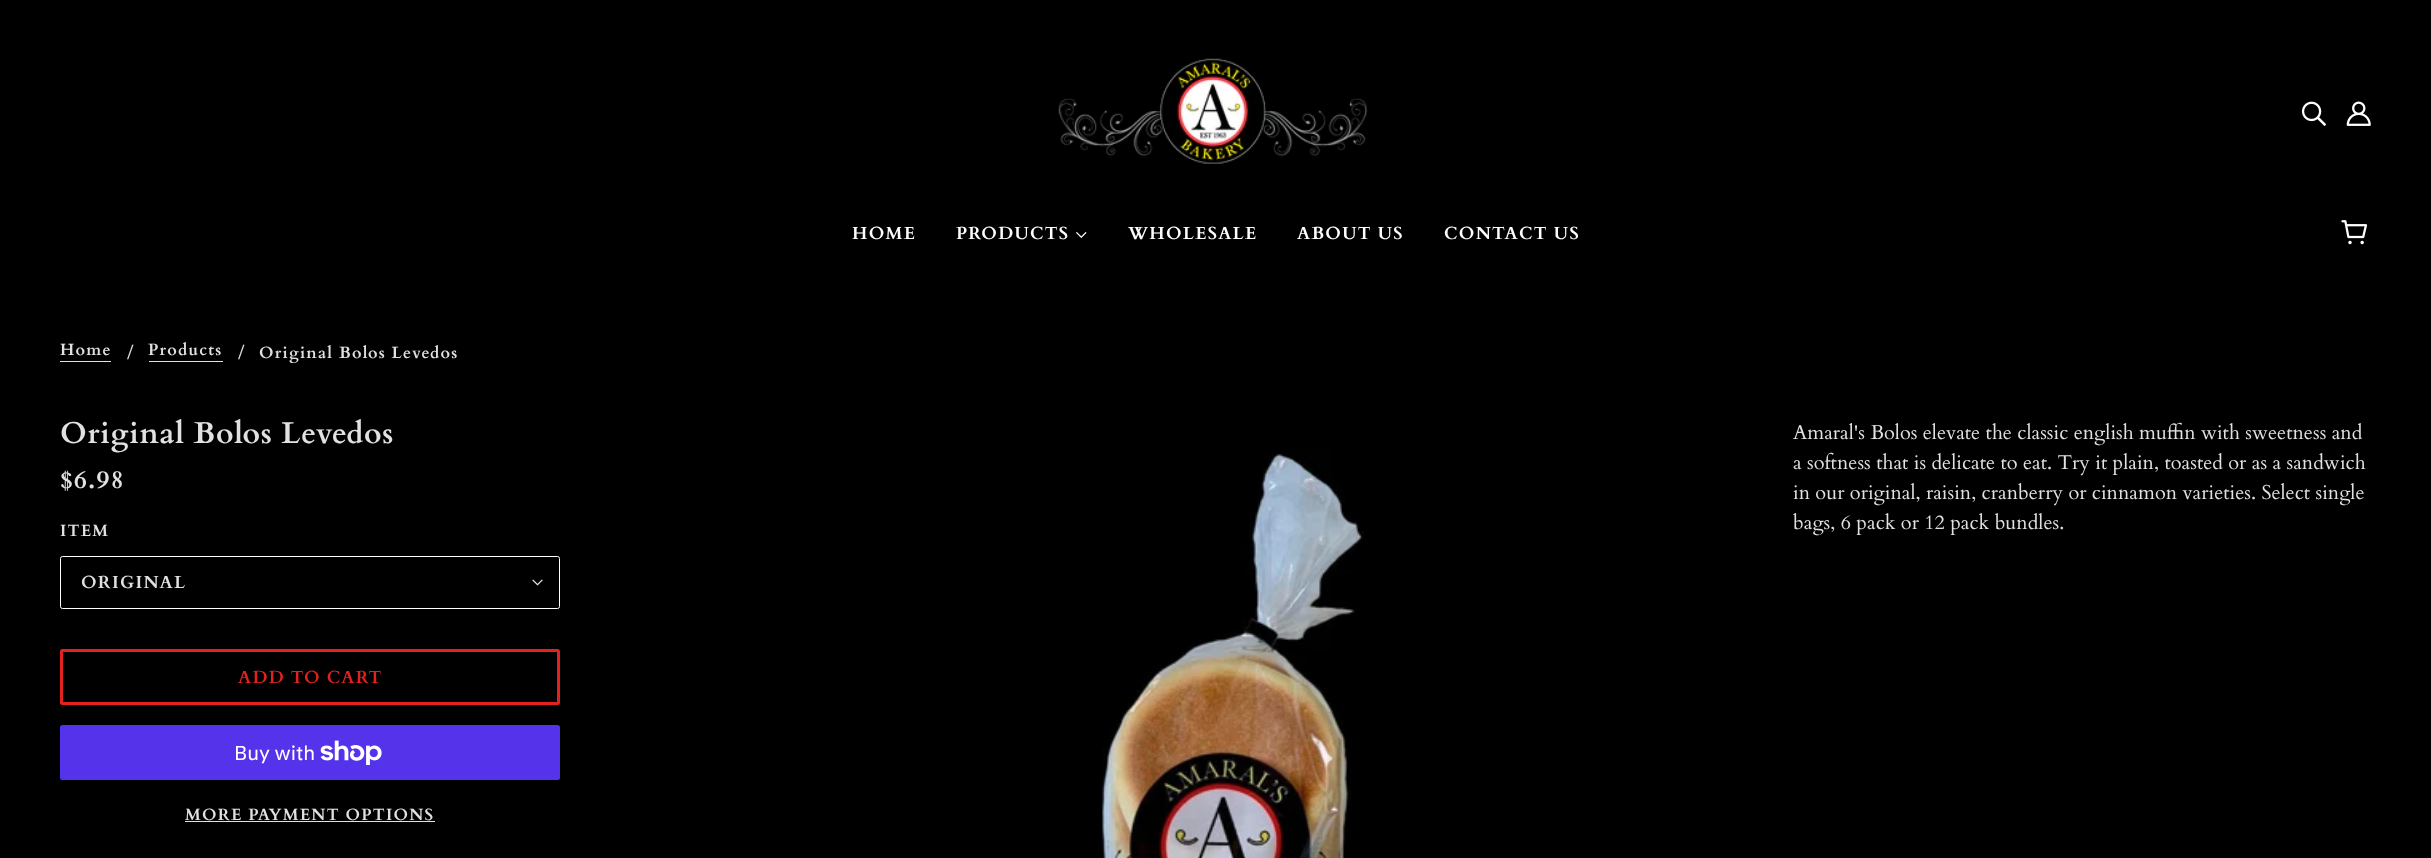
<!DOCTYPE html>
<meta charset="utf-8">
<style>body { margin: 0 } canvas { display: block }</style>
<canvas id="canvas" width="2431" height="858"></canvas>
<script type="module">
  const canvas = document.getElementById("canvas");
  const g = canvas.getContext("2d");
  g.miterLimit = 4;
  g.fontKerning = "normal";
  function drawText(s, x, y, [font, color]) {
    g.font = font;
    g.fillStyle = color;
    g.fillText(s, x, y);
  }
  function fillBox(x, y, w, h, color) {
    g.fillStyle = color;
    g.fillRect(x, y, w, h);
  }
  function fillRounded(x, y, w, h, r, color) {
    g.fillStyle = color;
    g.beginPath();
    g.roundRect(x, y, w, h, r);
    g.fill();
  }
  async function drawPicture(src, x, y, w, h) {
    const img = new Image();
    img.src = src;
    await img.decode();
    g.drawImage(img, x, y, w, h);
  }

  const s1 = ["bold 17.5px Cardo", "#FFFFFF"];
  const s2 = ["bold 16.25px Cardo", "#E1E1E1"];
  const s3 = ["20px Cardo", "#E1E1E1"];
  const s4 = ["bold 30px Cardo", "#E1E1E1"];
  const s5 = ["bold 25px Cardo", "#E1E1E1"];
  const s6 = ["bold 17.5px Cardo", "#E1E1E1"];
  const s7 = ["bold 17.5px Cardo", "#E22120"];
  const s8 = ["20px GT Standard", "#FFFFFF"];

  fillBox(0, 0, 2431, 858, "#000000");
  await drawPicture("pic1.png", 1058, 58, 310, 106);
  await drawPicture("pic2.png", 2301, 101, 25, 25);
  await drawPicture("pic3.png", 2346, 101, 25, 25);
  g.letterSpacing = "1.25px";
  drawText("HOME", 852, 239, s1);
  drawText("PRODUCTS", 956, 239, s1);
  await drawPicture("pic4.png", 1076, 232, 11, 6);
  drawText("WHOLESALE", 1128, 239, s1);
  drawText("ABOUT US", 1297, 239, s1);
  drawText("CONTACT US", 1444, 239, s1);
  await drawPicture("pic5.png", 2341, 220, 27, 25);
  drawText("Home", 60, 355, s2);
  fillBox(60, 361, 51, 1, "#E1E1E1");
  g.letterSpacing = "0px";
  drawText("/", 127, 359, s3);
  g.letterSpacing = "1.25px";
  drawText("Products", 148, 355, s2);
  fillBox(149, 361, 74, 1, "#E1E1E1");
  g.letterSpacing = "0px";
  drawText("/", 238, 359, s3);
  g.letterSpacing = "1.25px";
  drawText("Original Bolos Levedos", 259, 358, s2);
  g.letterSpacing = "0.75px";
  drawText("Original Bolos Levedos", 60, 443, s4);
  await drawPicture("pic6.png", 1101, 449, 263, 409);
  g.letterSpacing = "0px";
  drawText("Amaral's Bolos elevate the classic english muffin with sweetness and", 1793, 439, s3);
  drawText("a softness that is delicate to eat. Try it plain, toasted or as a sandwich", 1793, 469, s3);
  drawText("in our original, raisin, cranberry or cinnamon varieties. Select single", 1793, 499, s3);
  drawText("bags, 6 pack or 12 pack bundles.", 1793, 529, s3);
  g.letterSpacing = "1.25px";
  drawText("$6.98", 60, 488, s5);
  drawText("ITEM", 60, 536, s2);
  g.beginPath();
  g.roundRect(60.5, 556.5, 499, 52, 2);
  g.strokeStyle = "#FFFFFF";
  g.stroke();
  drawText("ORIGINAL", 81, 588, s6);
  await drawPicture("pic7.png", 532, 579, 11, 7);
  g.beginPath();
  g.roundRect(61.5, 650.5, 497, 53, 1);
  g.strokeStyle = "#E22120";
  g.lineWidth = 3;
  g.stroke();
  drawText("ADD TO CART", 238, 683, s7);
  fillRounded(60, 725, 500, 55, 2.5, "#5433EB");
  g.letterSpacing = "0px";
  drawText("Buy with", 234, 760, s8);
  await drawPicture("pic8.png", 320, 740, 62, 25);
  g.letterSpacing = "1.25px";
  drawText("MORE PAYMENT OPTIONS", 185, 820, s2);
  fillBox(185, 821, 250, 1, "#E1E1E1");
</script>
